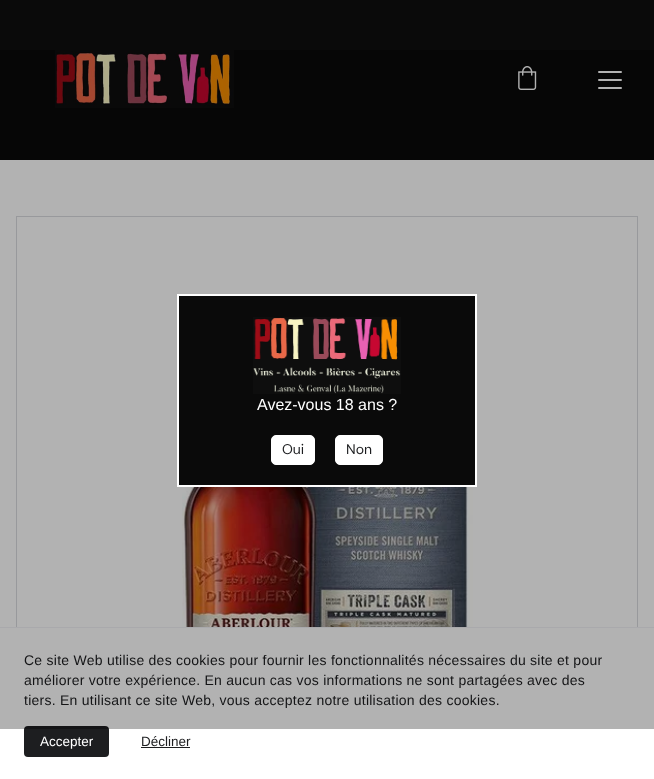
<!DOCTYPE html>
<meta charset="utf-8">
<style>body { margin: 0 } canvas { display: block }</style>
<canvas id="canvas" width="654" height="779"></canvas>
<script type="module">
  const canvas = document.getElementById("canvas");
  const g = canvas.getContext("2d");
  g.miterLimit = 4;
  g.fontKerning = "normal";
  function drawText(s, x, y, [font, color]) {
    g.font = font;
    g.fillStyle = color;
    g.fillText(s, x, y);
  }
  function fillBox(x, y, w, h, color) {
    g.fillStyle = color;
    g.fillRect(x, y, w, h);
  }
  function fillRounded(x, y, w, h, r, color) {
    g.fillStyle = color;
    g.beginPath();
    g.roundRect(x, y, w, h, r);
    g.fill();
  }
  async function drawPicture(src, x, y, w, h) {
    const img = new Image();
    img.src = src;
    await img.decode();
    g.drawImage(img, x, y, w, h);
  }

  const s1 = ["14px Liberation Sans", "#1D1E20"];
  const s2 = ["16px Liberation Sans", "#FFFFFF"];
  const s3 = ["14px DM Sans", "#1D1E20"];
  const s4 = ["13.5px Liberation Sans", "#FFFFFF"];
  const s5 = ["13.5px Liberation Sans", "#1D1E20"];

  fillBox(0, 0, 654, 779, "#FFFFFF");
  fillBox(0, 0, 654, 160, "#0A0A0A");
  await drawPicture("pic2.png", 55, 50, 179, 58);
  await drawPicture("pic3.png", 518, 66, 19, 24);
  fillRounded(598, 71, 24, 2, 1, "#FFFFFF");
  fillRounded(598, 79, 24, 2, 1, "#FFFFFF");
  fillRounded(598, 87, 24, 2, 1, "#FFFFFF");
  g.strokeStyle = "#DADCE0";
  g.strokeRect(16.5, 216.5, 621, 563);
  await drawPicture("pic4.png", 182, 487, 291, 140);
  fillBox(16, 628, 622, 151, "#FFFFFF");
  fillBox(0, 627, 654, 1, "#F2F3F6");
  g.letterSpacing = "0.25px";
  drawText("Ce site Web utilise des cookies pour fournir les fonctionnalités nécessaires du site et pour", 24, 665, s1);
  drawText("améliorer votre expérience. En aucun cas vos informations ne sont partagées avec des", 24, 685, s1);
  drawText("tiers. En utilisant ce site Web, vous acceptez notre utilisation des cookies.", 24, 705, s1);
  fillRounded(24, 726, 85, 31, 4, "#1D1E20");
  fillBox(0, 50, 654, 679, "rgba(0, 0, 0, 0.3)");
  g.fillStyle = "#0A0A0A";
  g.beginPath();
  g.rect(178, 295, 298, 191);
  g.fill();
  g.strokeStyle = "#FFFFFF";
  g.lineWidth = 2;
  g.stroke();
  await drawPicture("pic1.png", 253, 317, 148, 77);
  g.letterSpacing = "0px";
  drawText("Avez-vous 18 ans ?", 257, 410, s2);
  g.beginPath();
  g.roundRect(271.5, 435.5, 43, 29, 4.5);
  g.fill();
  g.lineWidth = 1;
  g.stroke();
  drawText("Oui", 282, 454, s3);
  g.fillStyle = "#FFFFFF";
  g.beginPath();
  g.roundRect(335.5, 435.5, 47, 29, 4.5);
  g.fill();
  g.stroke();
  drawText("Non", 346, 454, s3);
  drawText("Accepter", 40, 746, s4);
  drawText("Décliner", 141, 746, s5);
  fillBox(141, 747, 49, 1, "#1D1E20");
</script>
